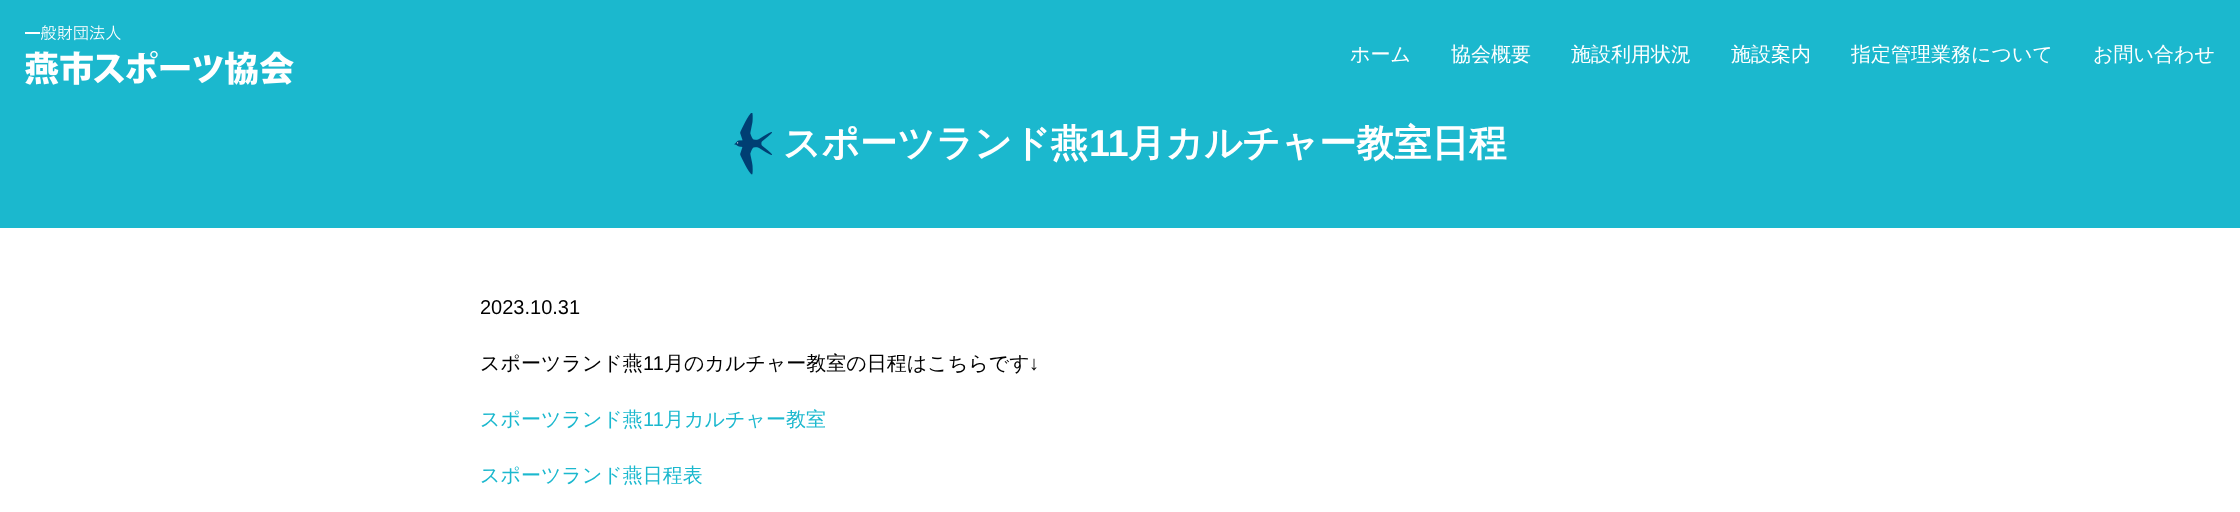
<!DOCTYPE html>
<meta charset="utf-8">
<style>body { margin: 0 } canvas { display: block }</style>
<canvas id="canvas" width="2240" height="512"></canvas>
<script type="module">
  const canvas = document.getElementById("canvas");
  const g = canvas.getContext("2d");
  g.miterLimit = 4;
  g.fontKerning = "normal";
  function drawText(s, x, y, [font, color]) {
    g.font = font;
    g.fillStyle = color;
    g.fillText(s, x, y);
  }
  function fillBox(x, y, w, h, color) {
    g.fillStyle = color;
    g.fillRect(x, y, w, h);
  }
  async function drawPicture(src, x, y, w, h) {
    const img = new Image();
    img.src = src;
    await img.decode();
    g.drawImage(img, x, y, w, h);
  }

  const s1 = ["500 20px WenQuanYi Zen Hei", "#FFFFFF"];
  const s2 = ["bold 37.5px WenQuanYi Zen Hei", "#FFFFFF"];
  const s3 = ["bold 37.5px Liberation Sans", "#FFFFFF"];
  const s4 = ["20px Liberation Sans", "#000000"];
  const s5 = ["500 20px WenQuanYi Zen Hei", "#000000"];
  const s6 = ["500 20px WenQuanYi Zen Hei", "#1BB8CE"];
  const s7 = ["20px Liberation Sans", "#1BB8CE"];

  fillBox(0, 0, 2240, 512, "#FFFFFF");
  fillBox(0, 0, 2240, 228, "#1BB8CE");
  await drawPicture("pic1.png", 25, 25, 269, 60);
  drawText("ホーム", 1350, 61, s1);
  drawText("協会概要", 1451, 61, s1);
  drawText("施設利用状況", 1571, 61, s1);
  drawText("施設案内", 1731, 61, s1);
  drawText("指定管理業務について", 1851, 61, s1);
  drawText("お問い合わせ", 2093, 61, s1);
  await drawPicture("pic2.png", 734, 113, 38, 62);
  drawText("スポーツランド燕", 783, 156, s2);
  drawText("11", 1089, 156, s3);
  drawText("月カルチャー教室日程", 1128, 156, s2);
  drawText("2023.10.31", 480, 314, s4);
  drawText("スポーツランド燕", 480, 370, s5);
  drawText("11", 643, 370, s4);
  drawText("月のカルチャー教室の日程はこちらです", 664, 370, s5);
  drawText("↓", 1029, 370, s4);
  drawText("スポーツランド燕", 480, 426, s6);
  drawText("11", 643, 426, s7);
  drawText("月カルチャー教室", 664, 426, s6);
  drawText("スポーツランド燕日程表", 480, 482, s6);
</script>
